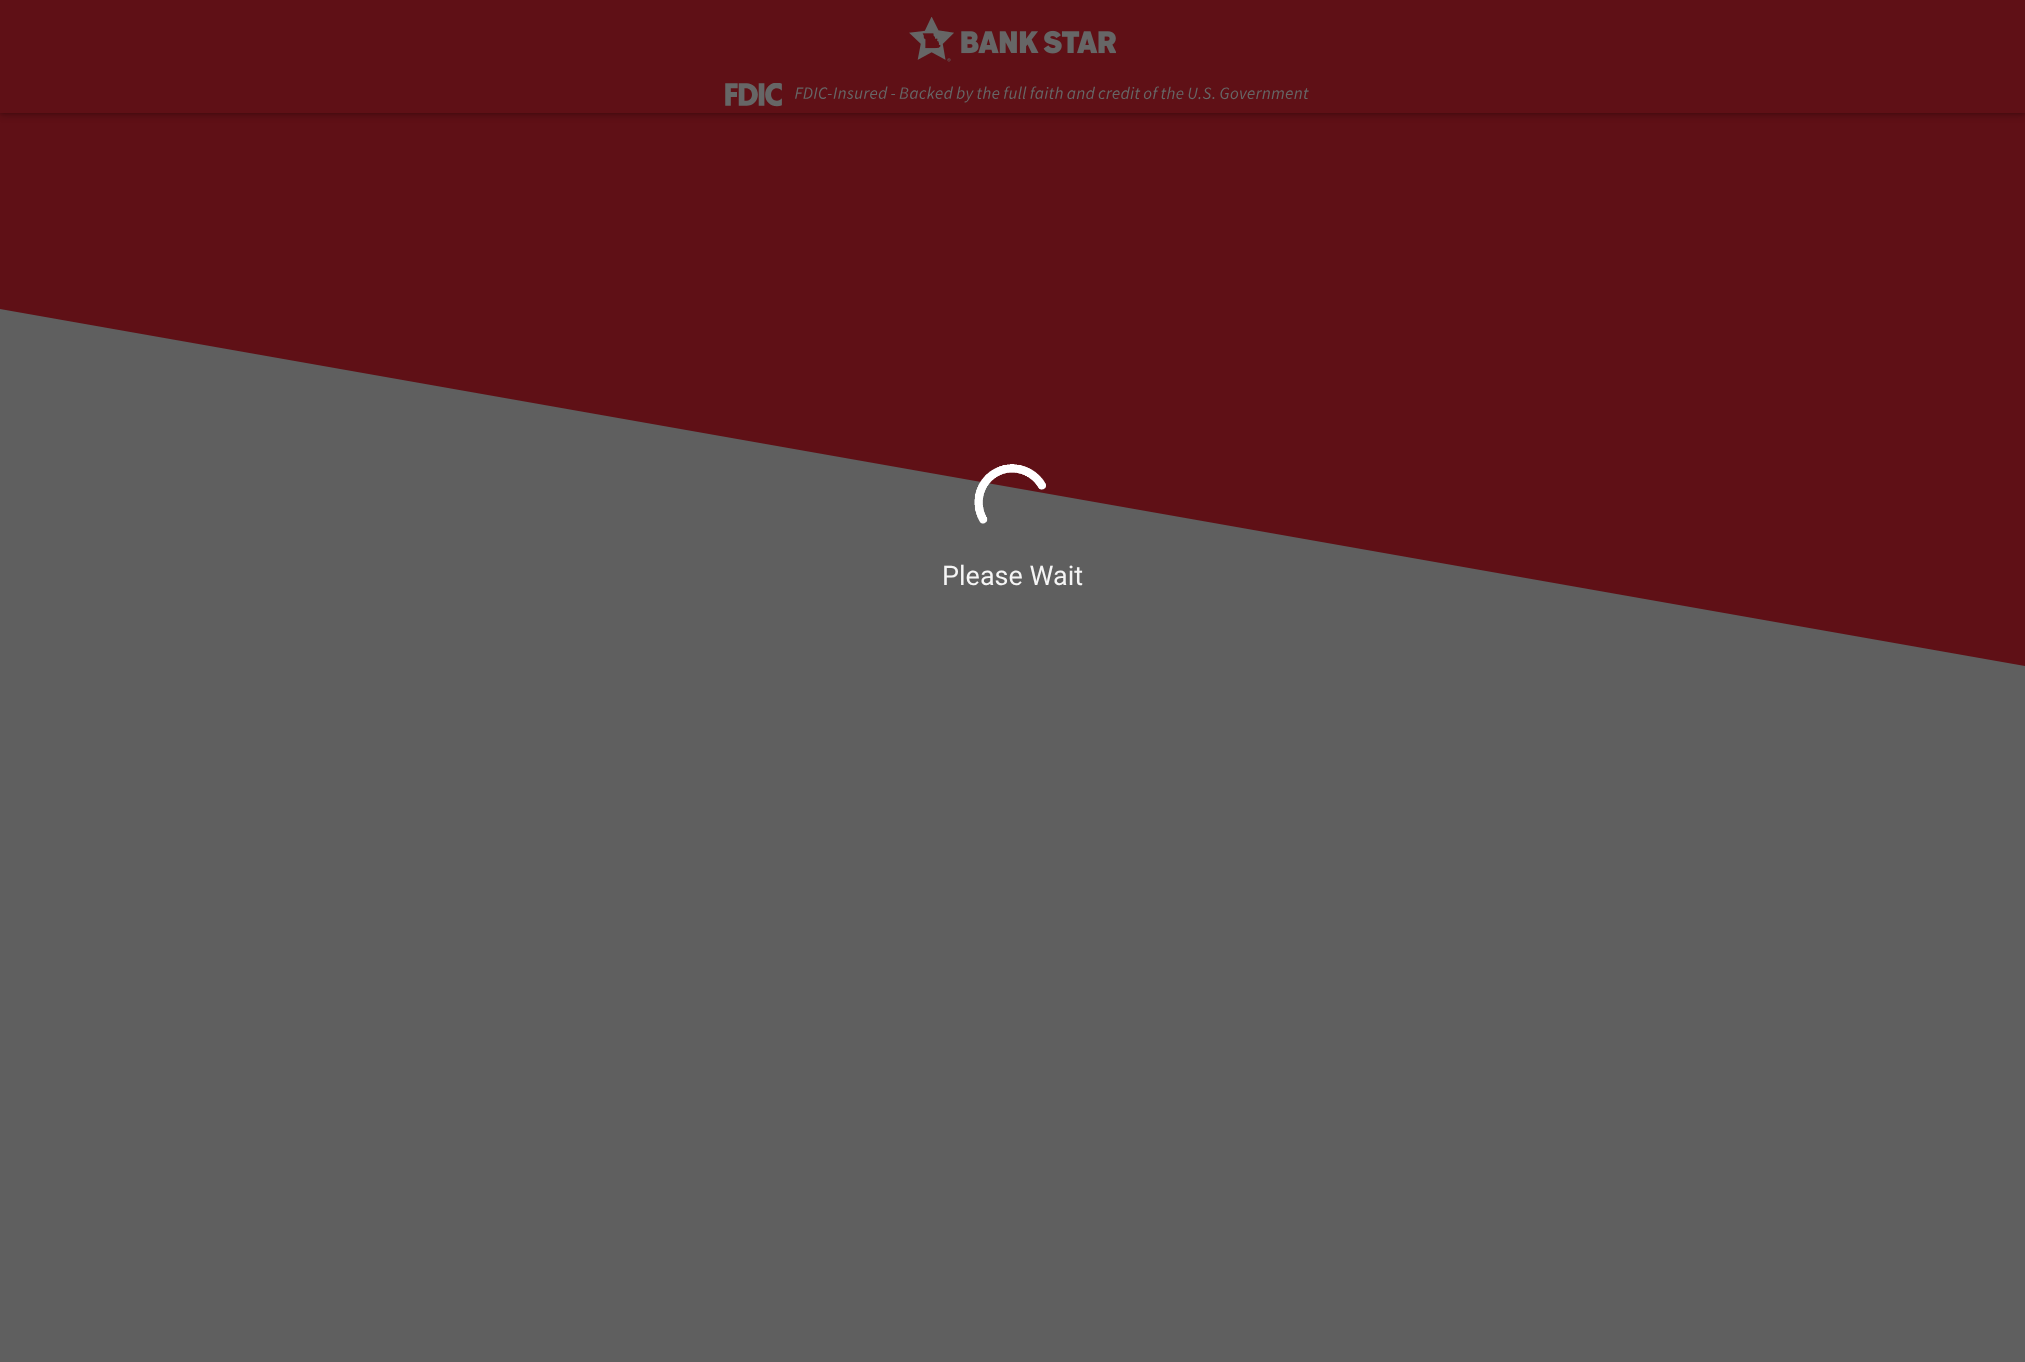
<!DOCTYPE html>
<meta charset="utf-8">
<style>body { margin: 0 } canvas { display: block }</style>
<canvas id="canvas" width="2025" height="1362"></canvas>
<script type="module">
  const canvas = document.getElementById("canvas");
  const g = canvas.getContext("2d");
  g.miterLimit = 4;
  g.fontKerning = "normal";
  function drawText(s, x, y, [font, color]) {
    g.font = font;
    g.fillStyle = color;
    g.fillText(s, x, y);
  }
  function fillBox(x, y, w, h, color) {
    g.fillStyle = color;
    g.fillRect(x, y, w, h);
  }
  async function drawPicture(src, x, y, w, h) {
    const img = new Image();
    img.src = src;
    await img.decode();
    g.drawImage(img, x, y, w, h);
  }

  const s1 = ["27px Roboto", "#F5F5F5"];

  fillBox(0, 0, 2025, 1362, "#5F5F5F");
  g.fillStyle = "#5F1016";
  g.beginPath();
  g.moveTo(0, -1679);
  g.lineTo(2025, -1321);
  g.lineTo(2025, 666);
  g.lineTo(0, 309);
  g.closePath();
  g.fill();
  g.fillStyle = "rgba(0, 0, 0, 0.2)";
  g.filter = "blur(3px)";
  g.beginPath();
  g.rect(0, 3, 2025, 113);
  g.fill();
  g.filter = "none";
  g.filter = "blur(1.5px)";
  g.beginPath();
  g.rect(0, 0, 2025, 113);
  g.fill();
  g.filter = "none";
  fillBox(0, 0, 2025, 113, "#5F1016");
  await drawPicture("pic1.png", 909, 17, 207, 45);
  await drawPicture("pic2.png", 725, 83, 584, 24);
  await drawPicture("pic3.png", 974, 464, 72, 60);
  drawText("Please Wait", 942, 585, s1);
</script>
